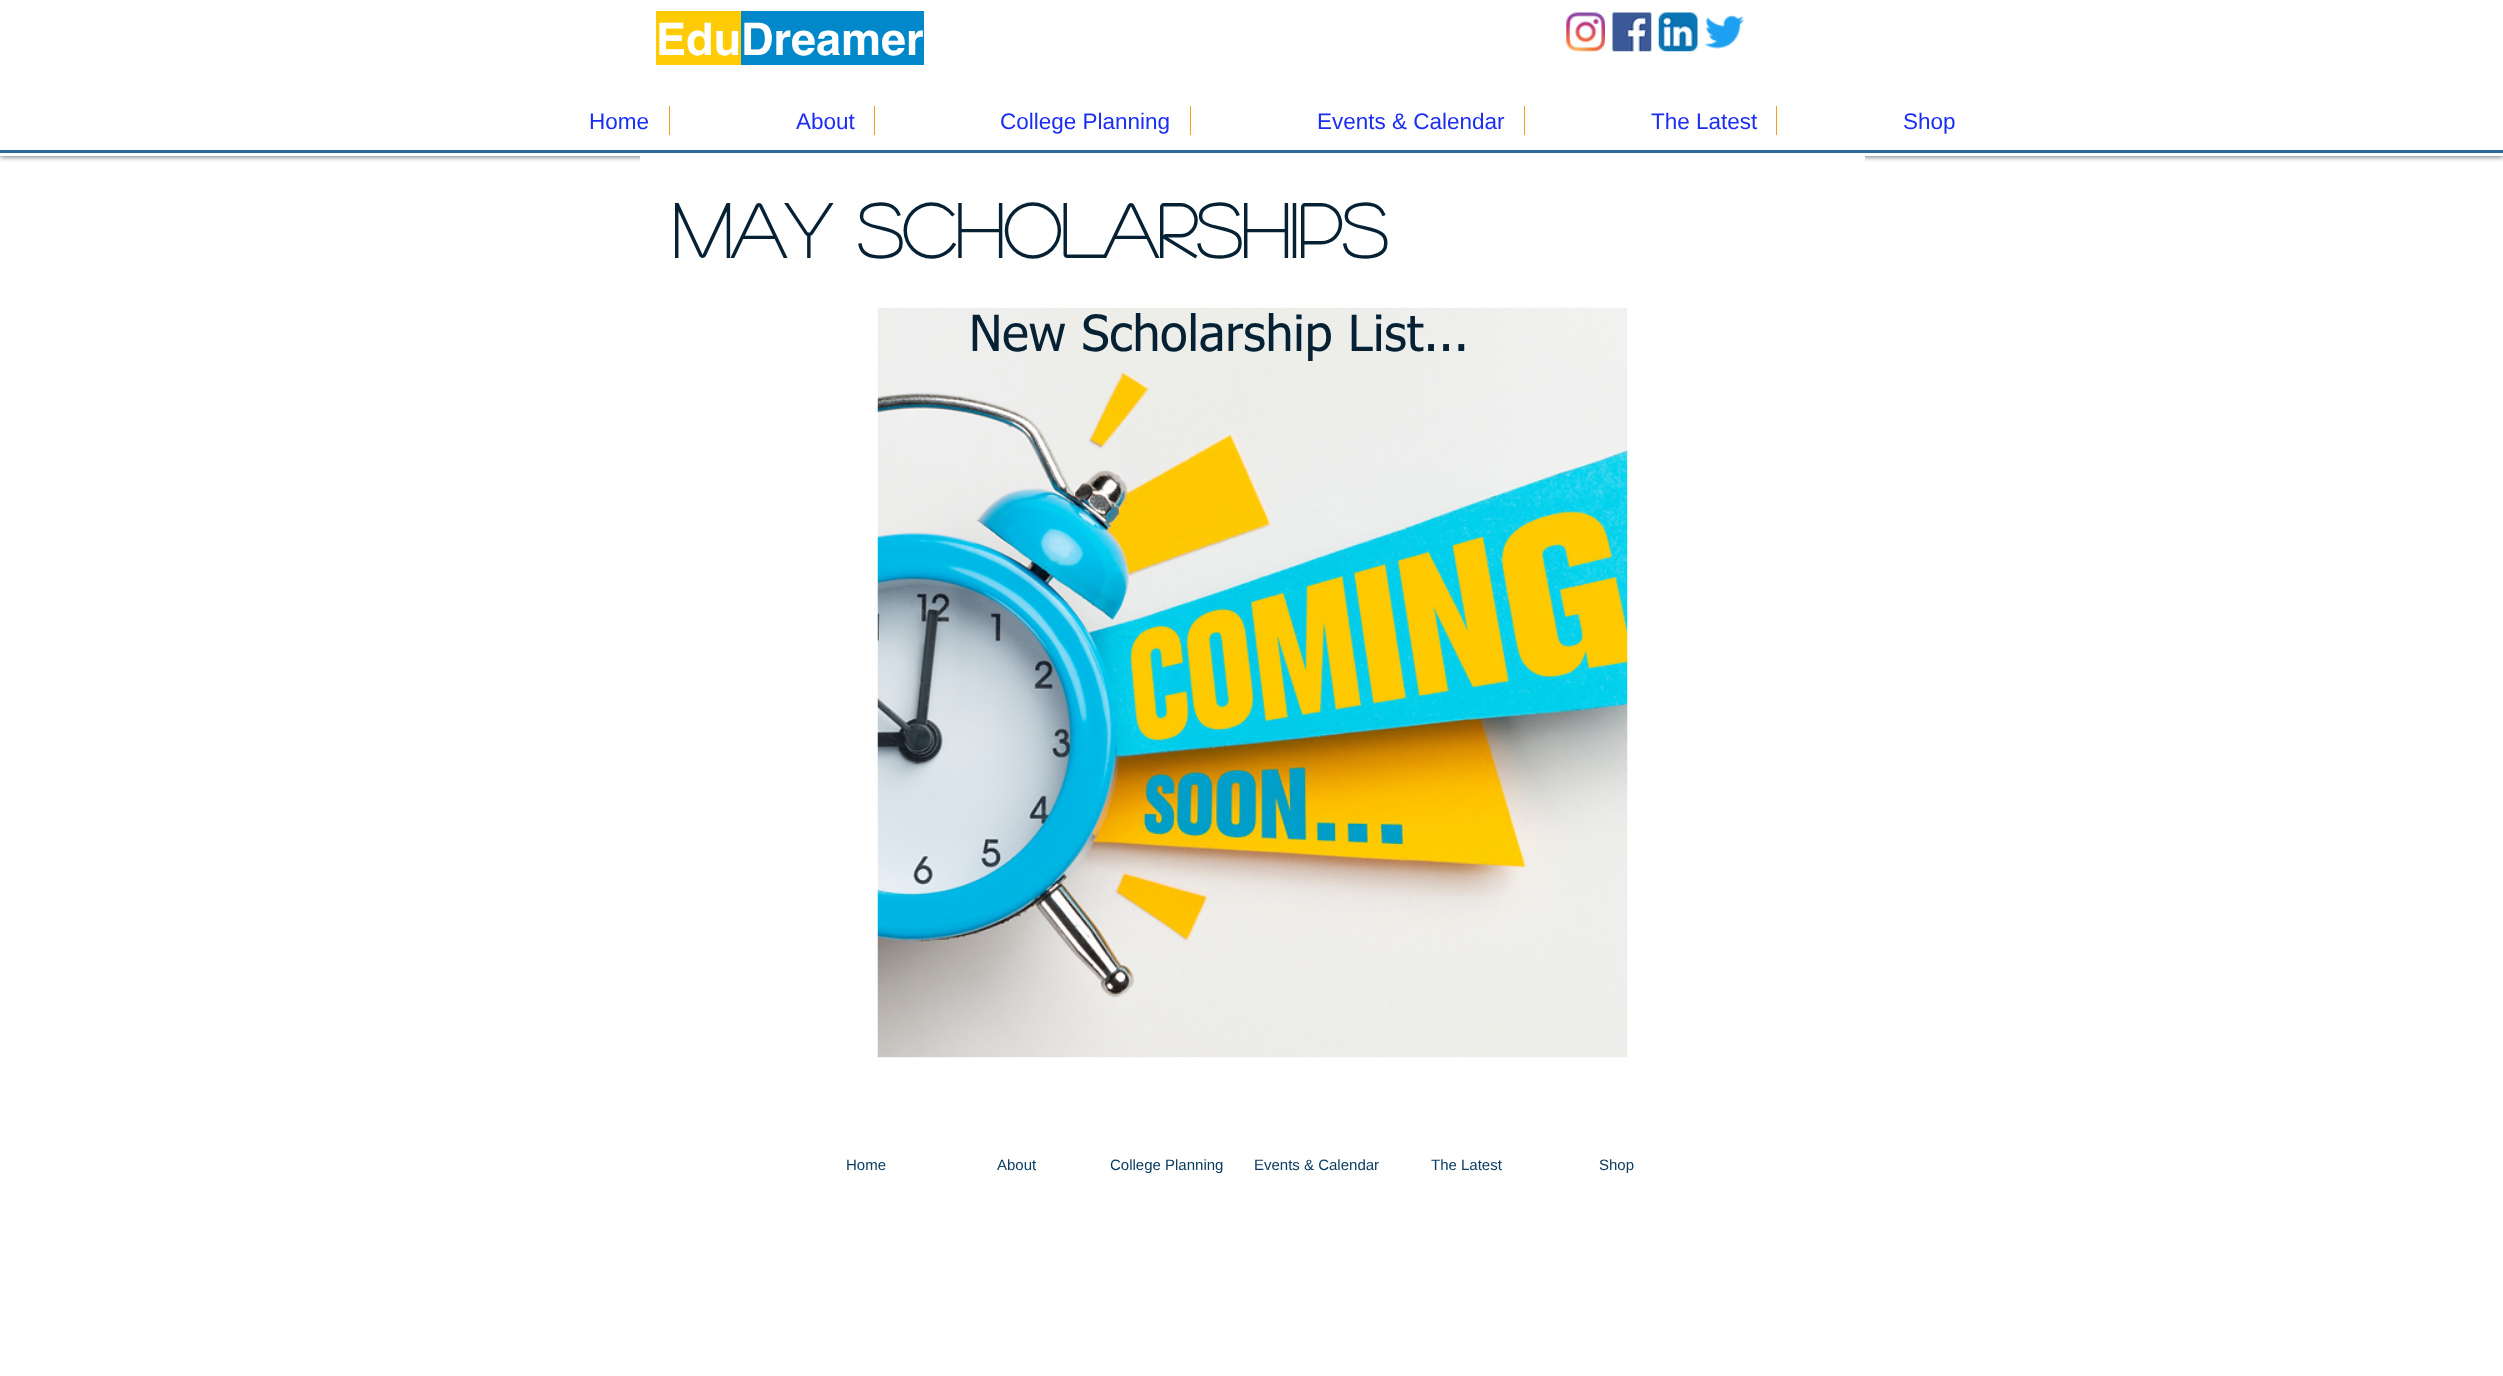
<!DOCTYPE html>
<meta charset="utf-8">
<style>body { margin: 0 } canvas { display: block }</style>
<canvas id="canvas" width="2503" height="1376"></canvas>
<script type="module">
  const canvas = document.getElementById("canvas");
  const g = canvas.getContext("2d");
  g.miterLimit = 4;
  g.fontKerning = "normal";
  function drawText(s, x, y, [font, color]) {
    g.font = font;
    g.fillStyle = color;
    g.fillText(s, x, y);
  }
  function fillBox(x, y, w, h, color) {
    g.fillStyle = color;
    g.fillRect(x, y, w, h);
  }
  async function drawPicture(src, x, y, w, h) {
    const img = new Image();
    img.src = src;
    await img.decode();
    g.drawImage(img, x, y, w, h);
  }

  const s1 = ["bold 45px helvetica", "#FFFFFF"];
  const s2 = ["22.5px Liberation Sans", "#1A2DF3"];
  const s3 = ["bold 75px 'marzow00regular'", "#062134"];
  const s4 = ["50px tahoma", "#062134"];
  const s5 = ["15px Liberation Sans", "#0C3C60"];

  fillBox(0, 0, 2503, 1376, "#FFFFFF");
  g.save();
  g.beginPath();
  g.rect(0, 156, 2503, 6);
  g.clip();
  g.fillStyle = "rgba(0, 0, 0, 0.7)";
  g.filter = "blur(3px)";
  g.beginPath();
  g.rect(0, 0, 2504, 156);
  g.fill();
  g.filter = "none";
  g.restore();
  fillBox(656, 11, 85, 54, "#FFCB05");
  drawText("Edu", 656, 55, s1);
  fillBox(741, 11, 183, 54, "#0088CB");
  drawText("Dreamer", 741, 55, s1);
  await drawPicture("pic1.png", 1566, 12, 39, 40);
  await drawPicture("pic2.png", 1612, 12, 40, 40);
  await drawPicture("pic3.png", 1658, 12, 40, 40);
  await drawPicture("pic4.png", 1705, 15, 39, 34);
  drawText("Home", 589, 129, s2);
  fillBox(669, 106, 1, 29, "#F39D1D");
  drawText("About", 796, 129, s2);
  fillBox(874, 106, 1, 29, "#F39D1D");
  drawText("College Planning", 1000, 129, s2);
  fillBox(1190, 106, 1, 29, "#F39D1D");
  drawText("Events & Calendar", 1317, 129, s2);
  fillBox(1524, 106, 1, 29, "#F39D1D");
  drawText("The Latest", 1651, 129, s2);
  fillBox(1776, 106, 1, 29, "#F39D1D");
  drawText("Shop", 1903, 129, s2);
  fillBox(0, 150, 2503, 3, "#2B689C");
  fillBox(640, 156, 1225, 7, "#FFFFFF");
  drawText("May Scholarships", 672, 258, s3);
  await drawPicture("pic5.png", 877, 307, 751, 751);
  drawText("New Scholarship List...", 969, 351, s4);
  drawText("Home", 846, 1170, s5);
  drawText("About", 997, 1170, s5);
  drawText("College Planning", 1110, 1170, s5);
  drawText("Events & Calendar", 1254, 1170, s5);
  drawText("The Latest", 1431, 1170, s5);
  drawText("Shop", 1599, 1170, s5);
</script>
